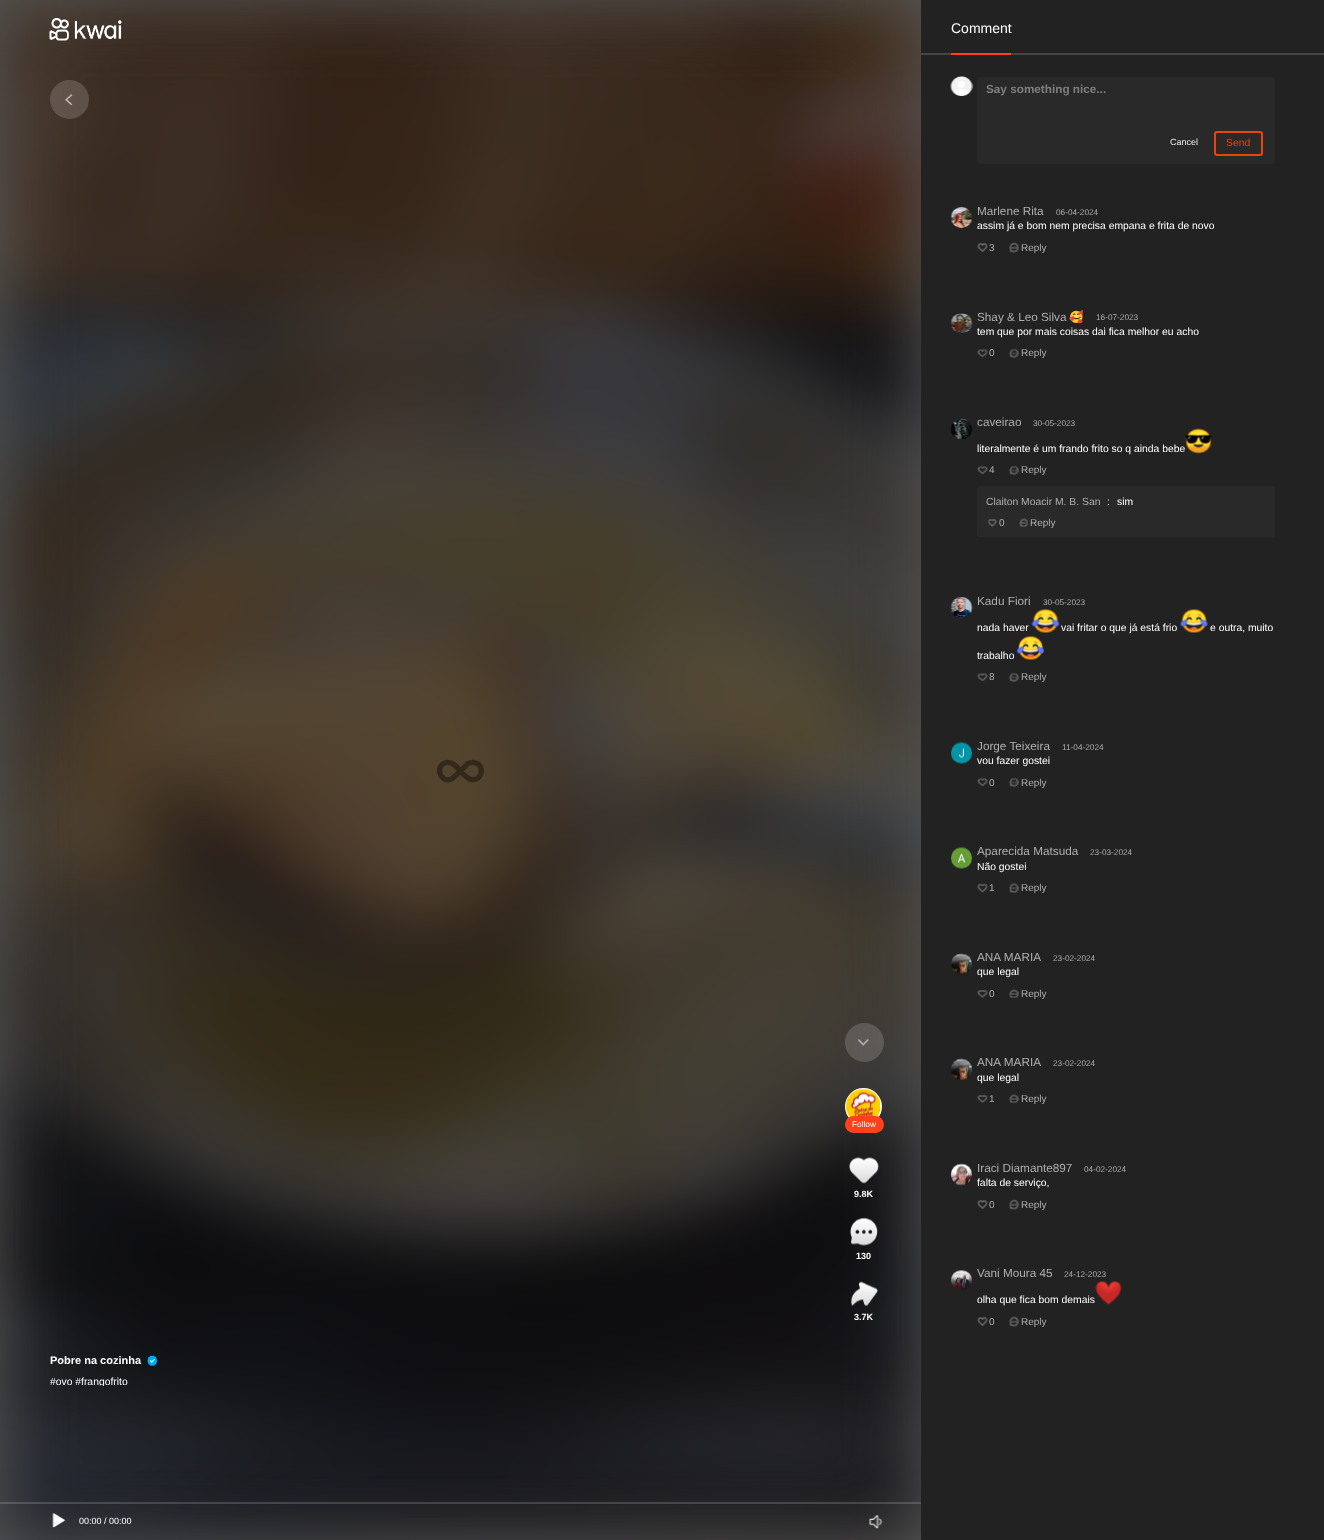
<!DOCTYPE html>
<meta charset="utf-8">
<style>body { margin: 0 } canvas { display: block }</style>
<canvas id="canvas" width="1324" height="1540"></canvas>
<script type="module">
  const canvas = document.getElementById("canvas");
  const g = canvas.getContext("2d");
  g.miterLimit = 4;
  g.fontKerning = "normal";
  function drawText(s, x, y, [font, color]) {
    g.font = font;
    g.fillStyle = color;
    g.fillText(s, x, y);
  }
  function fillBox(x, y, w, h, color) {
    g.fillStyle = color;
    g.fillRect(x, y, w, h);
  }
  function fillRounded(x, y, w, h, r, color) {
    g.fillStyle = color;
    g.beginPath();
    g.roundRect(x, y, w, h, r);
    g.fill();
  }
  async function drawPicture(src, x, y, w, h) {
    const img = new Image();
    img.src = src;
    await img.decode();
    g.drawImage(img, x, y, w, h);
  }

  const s1 = ["8.25px Liberation Sans", "#FFFFFF"];
  const s2 = ["bold 9px Liberation Sans", "#FFFFFF"];
  const s3 = ["bold 11px Liberation Sans", "#FFFFFF"];
  const s4 = ["10.35px Liberation Sans", "#FFFFFF"];
  const s5 = ["9px Liberation Sans", "#FFFFFF"];
  const s6 = ["14px Liberation Sans", "#FFFFFF"];
  const s7 = ["bold 11.75px Liberation Sans", "#7F7F7F"];
  const s8 = ["9px Liberation Sans", "#E8E8E8"];
  const s9 = ["10.35px Liberation Sans", "#EA4509"];
  const s10 = ["11.75px Liberation Sans", "#AFAFAF"];
  const s11 = ["8.25px Liberation Sans", "#AFAFAF"];
  const s12 = ["10px Liberation Sans", "#AFAFAF"];
  const s13 = ["11.75px Noto Color Emoji", "#AFAFAF"];
  const s14 = ["10.35px Liberation Sans", "#AFAFAF"];
  const s15 = ["10.35px Liberation Sans", "#E8E8E8"];

  fillBox(0, 0, 1324, 1540, "#585858");
  await drawPicture("pic2.png", 0, 0, 921, 1540);
  await drawPicture("pic1.png", 49, 18, 73, 23);
  g.fillStyle = "rgba(255, 255, 255, 0.16)";
  g.beginPath();
  g.arc(864.5, 1042.5, 19.5, 0, Math.PI * 2);
  g.fill();
  await drawPicture("pic3.png", 858, 1038, 11, 8);
  g.beginPath();
  g.arc(863.5, 1106.5, 17.5, 0, Math.PI * 2);
  g.strokeStyle = "#FFFFFF";
  g.lineWidth = 2;
  g.stroke();
  await drawPicture("pic4.png", 846, 1088, 35, 30);
  fillRounded(845, 1116, 39, 17, 8.5, "#FF421C");
  drawText("Follow", 852, 1127, s1);
  await drawPicture("pic5.png", 849, 1157, 30, 27);
  drawText("9.8K", 854, 1197, s2);
  await drawPicture("pic6.png", 850, 1217, 28, 29);
  drawText("130", 856, 1259, s2);
  await drawPicture("pic7.png", 851, 1281, 27, 25);
  drawText("3.7K", 854, 1320, s2);
  drawText("Pobre na cozinha", 50, 1364, s3);
  await drawPicture("pic8.png", 147, 1355, 11, 11);
  g.save();
  g.beginPath();
  g.rect(50, 1376, 207, 10);
  g.clip();
  drawText("#ovo #frangofrito", 50, 1385, s4);
  g.restore();
  g.beginPath();
  g.moveTo(460.5, 771);
  g.lineTo(468, 763.5);
  g.bezierCurveTo(470, 762.5, 472.5, 762, 474.5, 762.5);
  g.bezierCurveTo(485.5, 764.5, 482.5, 782, 471, 779.5);
  g.bezierCurveTo(462, 777.5, 456.5, 760.5, 446.5, 762.5);
  g.bezierCurveTo(433.5, 765, 440.5, 785, 452.5, 778.5);
  g.lineTo(460.5, 771);
  g.strokeStyle = "#32281B";
  g.lineWidth = 5.2;
  g.lineCap = "round";
  g.stroke();
  fillBox(0, 1502, 921, 2, "rgba(255, 255, 255, 0.16)");
  await drawPicture("pic9.png", 52, 1513, 14, 15);
  drawText("00:00 / 00:00", 79, 1524, s5);
  await drawPicture("pic10.png", 869, 1515, 14, 14);
  fillBox(921, 0, 403, 1540, "#222222");
  fillBox(921, 53, 403, 2, "#454545");
  fillBox(951, 53, 60, 2, "#FF421C");
  drawText("Comment", 951, 33, s6);
  await drawPicture("pic11.png", 950, 76, 23, 20);
  g.fillStyle = "#292929";
  g.beginPath();
  g.roundRect(977, 77, 298, 54, [3, 3, 0, 0]);
  g.fill();
  drawText("Say something nice...", 986, 93, s7);
  g.fillStyle = "#292929";
  g.beginPath();
  g.roundRect(977, 131, 298, 33, [0, 0, 3, 3]);
  g.fill();
  drawText("Cancel", 1170, 145, s8);
  g.beginPath();
  g.roundRect(1215, 132, 47, 23, 2);
  g.strokeStyle = "#EA4509";
  g.lineWidth = 2;
  g.stroke();
  drawText("Send", 1226, 146, s9);
  await drawPicture("pic12.png", 950, 207, 23, 21);
  drawText("Marlene Rita", 977, 215, s10);
  drawText("06-04-2024", 1056, 215, s11);
  drawText("assim já e bom nem precisa empana e frita de novo", 977, 229, s4);
  await drawPicture("pic13.png", 977, 243, 11, 9);
  drawText("3", 989, 251, s12);
  await drawPicture("pic14.png", 1009, 242, 10, 11);
  drawText("Reply", 1021, 251, s12);
  await drawPicture("pic15.png", 950, 313, 23, 20);
  drawText("Shay & Leo Silva", 977, 321, s10);
  drawText("🥰", 1069, 321, s13);
  drawText("16-07-2023", 1096, 320, s11);
  drawText("tem que por mais coisas dai fica melhor eu acho", 977, 335, s4);
  await drawPicture("pic16.png", 977, 349, 11, 8);
  drawText("0", 989, 356, s12);
  await drawPicture("pic17.png", 1009, 349, 10, 9);
  drawText("Reply", 1021, 356, s12);
  await drawPicture("pic18.png", 950, 418, 23, 22);
  drawText("caveirao", 977, 426, s10);
  drawText("30-05-2023", 1033, 426, s11);
  drawText("literalmente é um frando frito so q ainda bebe", 977, 452, s4);
  await drawPicture("pic19.png", 1185, 428, 27, 26);
  await drawPicture("pic16.png", 977, 466, 11, 8);
  drawText("4", 989, 473, s12);
  await drawPicture("pic17.png", 1009, 466, 10, 9);
  drawText("Reply", 1021, 473, s12);
  fillRounded(977, 486, 298, 51, 3, "#292929");
  drawText("Claiton Moacir M. B. San", 986, 505, s14);
  drawText(":", 1107, 505, s15);
  drawText("sim", 1117, 505, s4);
  await drawPicture("pic20.png", 988, 519, 9, 8);
  drawText("0", 999, 526, s12);
  await drawPicture("pic21.png", 1019, 518, 9, 9);
  drawText("Reply", 1030, 526, s12);
  await drawPicture("pic22.png", 950, 597, 23, 21);
  drawText("Kadu Fiori", 977, 605, s10);
  drawText("30-05-2023", 1043, 605, s11);
  drawText("nada haver", 977, 631, s4);
  await drawPicture("pic23.png", 1031, 609, 29, 24);
  drawText("vai fritar o que já está frio", 1061, 631, s4);
  await drawPicture("pic24.png", 1180, 609, 28, 24);
  drawText("e outra, muito", 1210, 631, s4);
  drawText("trabalho", 977, 659, s4);
  await drawPicture("pic25.png", 1017, 636, 27, 24);
  await drawPicture("pic16.png", 977, 673, 11, 8);
  drawText("8", 989, 680, s12);
  await drawPicture("pic17.png", 1009, 673, 10, 9);
  drawText("Reply", 1021, 680, s12);
  await drawPicture("pic26.png", 951, 742, 21, 22);
  drawText("Jorge Teixeira", 977, 750, s10);
  drawText("11-04-2024", 1062, 750, s11);
  drawText("vou fazer gostei", 977, 764, s4);
  await drawPicture("pic16.png", 977, 778, 11, 8);
  drawText("0", 989, 786, s12);
  await drawPicture("pic17.png", 1009, 778, 10, 9);
  drawText("Reply", 1021, 786, s12);
  await drawPicture("pic27.png", 951, 847, 21, 22);
  drawText("Aparecida Matsuda", 977, 855, s10);
  drawText("23-03-2024", 1090, 855, s11);
  drawText("Não gostei", 977, 870, s4);
  await drawPicture("pic28.png", 977, 883, 11, 10);
  drawText("1", 989, 891, s12);
  await drawPicture("pic29.png", 1009, 883, 10, 10);
  drawText("Reply", 1021, 891, s12);
  await drawPicture("pic30.png", 951, 953, 21, 21);
  drawText("ANA MARIA", 977, 961, s10);
  drawText("23-02-2024", 1053, 961, s11);
  drawText("que legal", 977, 975, s4);
  await drawPicture("pic31.png", 977, 990, 11, 8);
  drawText("0", 989, 997, s12);
  await drawPicture("pic32.png", 1009, 989, 10, 9);
  drawText("Reply", 1021, 997, s12);
  await drawPicture("pic33.png", 951, 1058, 21, 22);
  drawText("ANA MARIA", 977, 1066, s10);
  drawText("23-02-2024", 1053, 1066, s11);
  drawText("que legal", 977, 1081, s4);
  await drawPicture("pic31.png", 977, 1095, 11, 8);
  drawText("1", 989, 1102, s12);
  await drawPicture("pic32.png", 1009, 1094, 10, 9);
  drawText("Reply", 1021, 1102, s12);
  await drawPicture("pic34.png", 951, 1163, 21, 23);
  drawText("Iraci Diamante897", 977, 1172, s10);
  drawText("04-02-2024", 1084, 1172, s11);
  drawText("falta de serviço,", 977, 1186, s4);
  await drawPicture("pic13.png", 977, 1200, 11, 9);
  drawText("0", 989, 1208, s12);
  await drawPicture("pic14.png", 1009, 1199, 10, 11);
  drawText("Reply", 1021, 1208, s12);
  await drawPicture("pic35.png", 951, 1270, 21, 21);
  drawText("Vani Moura 45", 977, 1277, s10);
  drawText("24-12-2023", 1064, 1277, s11);
  drawText("olha que fica bom demais", 977, 1303, s4);
  await drawPicture("pic36.png", 1095, 1281, 27, 24);
  await drawPicture("pic13.png", 977, 1317, 11, 9);
  drawText("0", 989, 1325, s12);
  await drawPicture("pic14.png", 1009, 1316, 10, 11);
  drawText("Reply", 1021, 1325, s12);
  g.fillStyle = "rgba(255, 255, 255, 0.16)";
  g.beginPath();
  g.arc(69.5, 99.5, 19.5, 0, Math.PI * 2);
  g.fill();
  await drawPicture("pic37.png", 65, 94, 8, 11);
</script>
